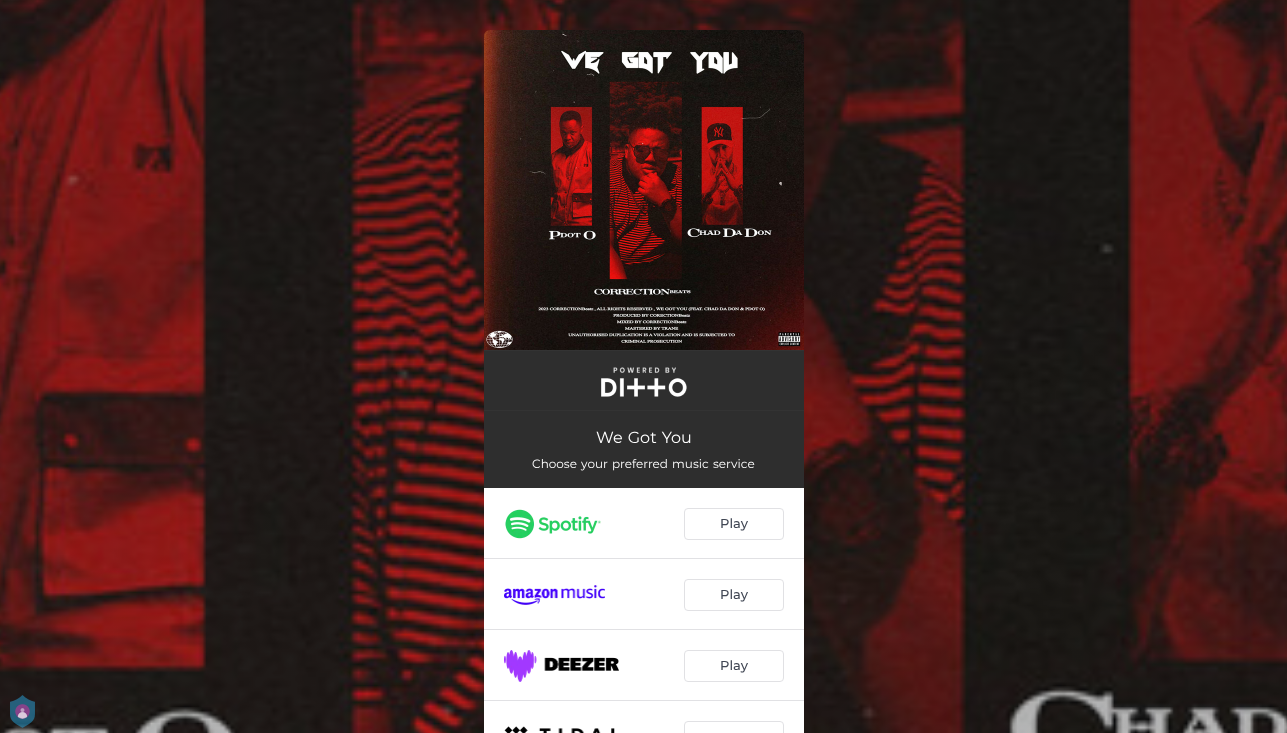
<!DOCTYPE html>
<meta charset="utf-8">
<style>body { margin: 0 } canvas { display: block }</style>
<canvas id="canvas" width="1287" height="733"></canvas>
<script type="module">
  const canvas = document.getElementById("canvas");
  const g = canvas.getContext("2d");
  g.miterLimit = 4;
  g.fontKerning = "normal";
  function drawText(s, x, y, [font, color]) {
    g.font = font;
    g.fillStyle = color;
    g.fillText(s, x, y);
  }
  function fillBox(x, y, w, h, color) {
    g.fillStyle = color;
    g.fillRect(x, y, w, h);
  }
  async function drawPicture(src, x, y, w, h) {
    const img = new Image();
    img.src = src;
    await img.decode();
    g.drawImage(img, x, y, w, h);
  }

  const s1 = ["16px Montserrat", "#FFFFFF"];
  const s2 = ["12px Montserrat", "#FFFFFF"];
  const s3 = ["500 13px Montserrat", "#414754"];

  fillBox(0, 0, 1287, 733, "#FFFFFF");
  await drawPicture("pic1.png", 0, 0, 1287, 733);
  await drawPicture("pic2.png", 484, 30, 320, 320);
  fillBox(484, 351, 320, 59, "#2E2E2E");
  fillBox(484, 350, 320, 1, "#333333");
  fillBox(484, 410, 320, 1, "#333333");
  await drawPicture("pic3.png", 601, 367, 86, 30);
  fillBox(484, 411, 320, 77, "#2E2E2E");
  g.wordSpacing = "1px";
  drawText("We Got You", 596, 443, s1);
  drawText("Choose your preferred music service", 532, 468, s2);
  fillBox(484, 488, 320, 245, "#FFFFFF");
  fillBox(484, 558, 320, 1, "#E1E1E4");
  await drawPicture("pic4.png", 505, 509, 96, 30);
  g.beginPath();
  g.roundRect(684.5, 508.5, 99, 31, 3.5);
  g.strokeStyle = "#E1E1E4";
  g.stroke();
  g.wordSpacing = "0px";
  drawText("Play", 720, 528, s3);
  fillBox(484, 629, 320, 1, "#E1E1E4");
  await drawPicture("pic5.png", 504, 585, 101, 20);
  g.beginPath();
  g.roundRect(684.5, 579.5, 99, 31, 3.5);
  g.stroke();
  drawText("Play", 720, 599, s3);
  fillBox(484, 700, 320, 1, "#E1E1E4");
  await drawPicture("pic6.png", 504, 650, 115, 32);
  g.beginPath();
  g.roundRect(684.5, 650.5, 99, 31, 3.5);
  g.stroke();
  drawText("Play", 720, 670, s3);
  await drawPicture("pic7.png", 504, 726, 111, 7);
  g.beginPath();
  g.roundRect(684.5, 721.5, 99, 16, 3.5);
  g.stroke();
  await drawPicture("pic8.png", 10, 695, 25, 33);
</script>
